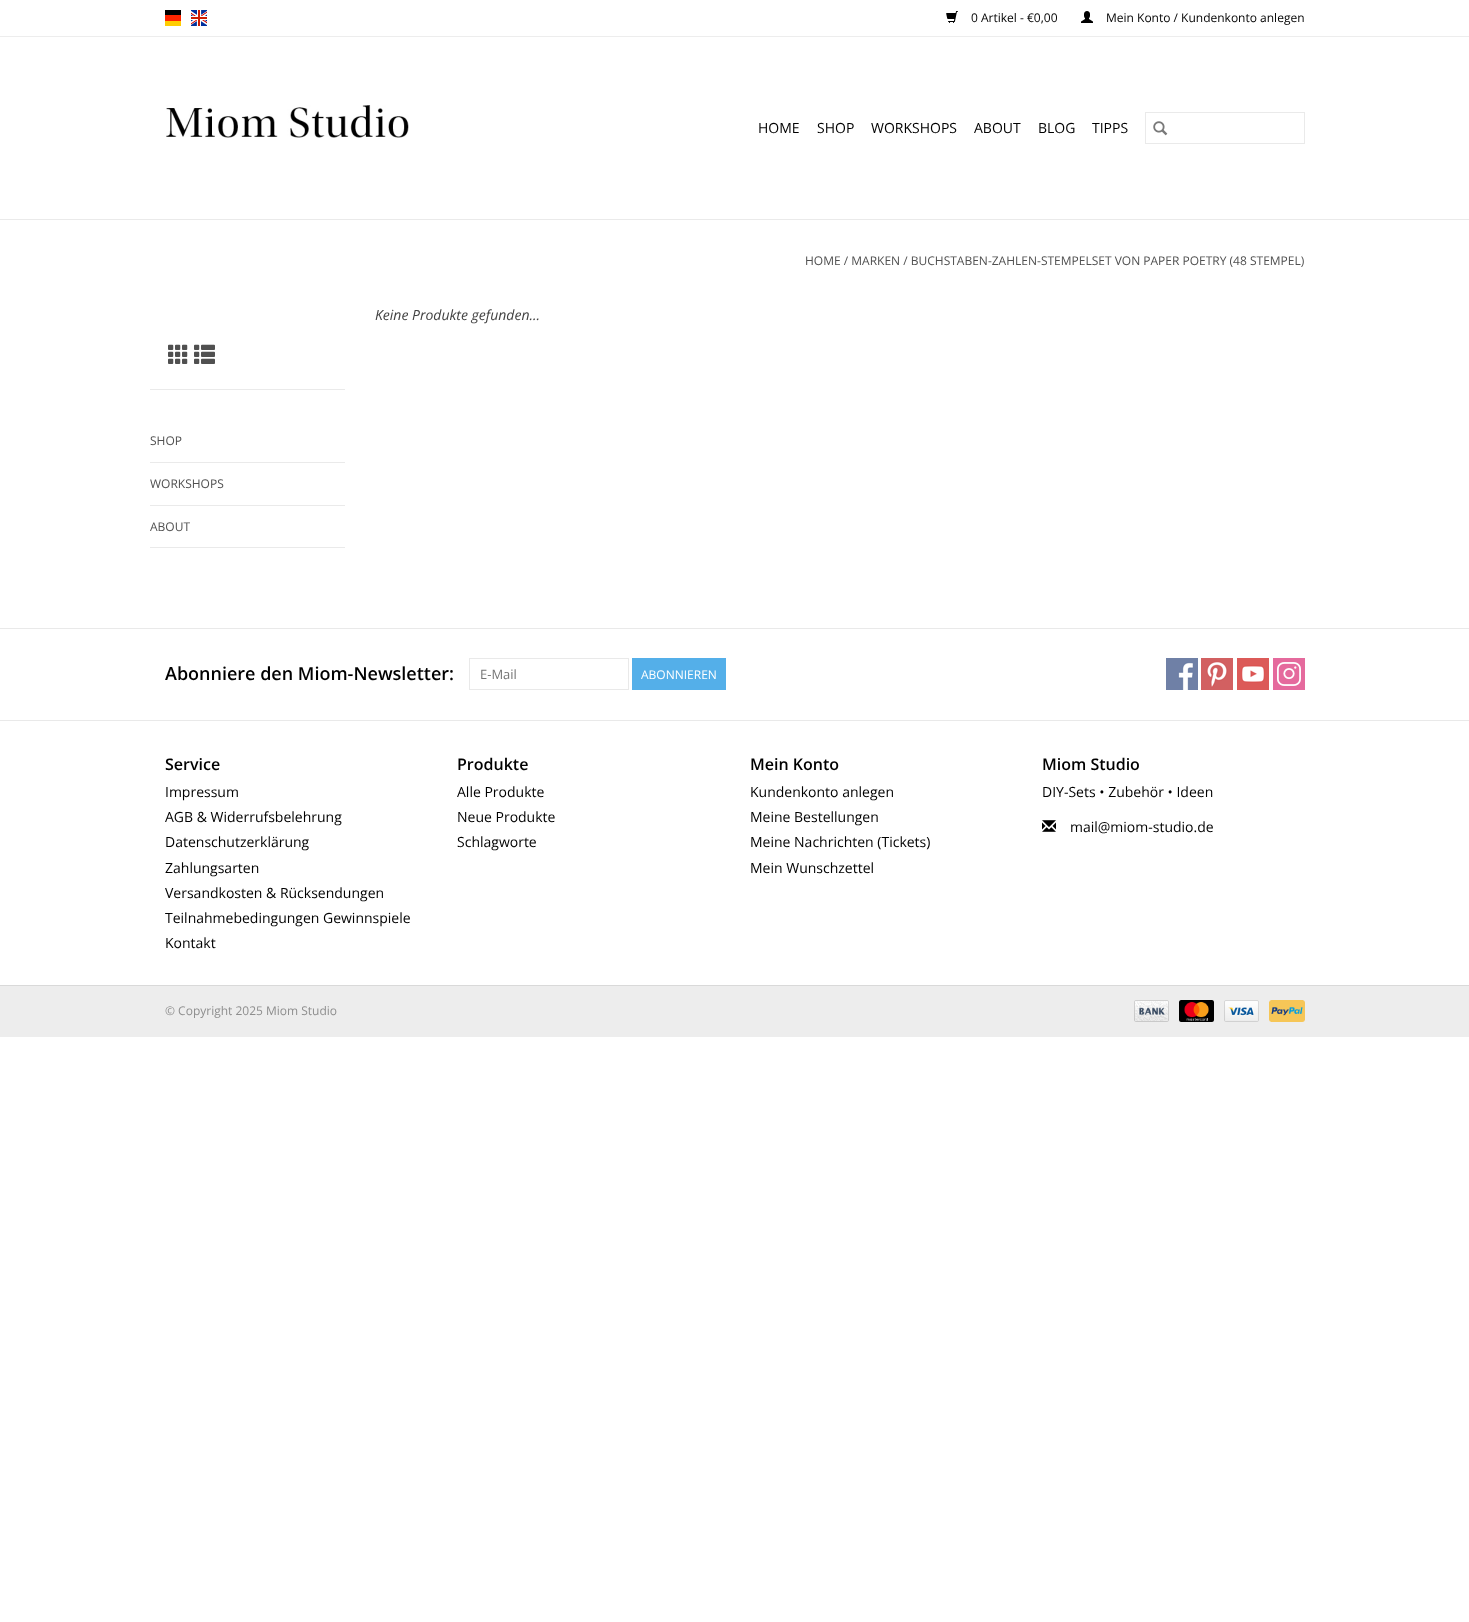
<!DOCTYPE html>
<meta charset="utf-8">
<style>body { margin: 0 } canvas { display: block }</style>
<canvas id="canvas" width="1469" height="1622"></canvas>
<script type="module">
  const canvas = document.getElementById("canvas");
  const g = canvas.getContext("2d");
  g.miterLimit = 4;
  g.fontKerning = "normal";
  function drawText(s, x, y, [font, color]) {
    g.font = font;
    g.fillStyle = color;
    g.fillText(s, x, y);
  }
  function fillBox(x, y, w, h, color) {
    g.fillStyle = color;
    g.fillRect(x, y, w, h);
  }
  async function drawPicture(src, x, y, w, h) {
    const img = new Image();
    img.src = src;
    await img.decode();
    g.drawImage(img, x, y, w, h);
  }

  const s1 = ["12px Open Sans", "#000000"];
  const s2 = ["14px Open Sans", "#000000"];
  const s3 = ["12px Open Sans", "#505050"];
  const s4 = ["italic 14px Open Sans", "#414141"];
  const s5 = ["600 18px Open Sans", "#000000"];
  const s6 = ["13px Open Sans", "#757575"];
  const s7 = ["12px Open Sans", "#FFFFFF"];
  const s8 = ["600 16px Open Sans", "#000000"];
  const s9 = ["12px Open Sans", "#8E8E8E"];

  fillBox(0, 0, 1469, 1622, "#FFFFFF");
  fillBox(0, 219, 1469, 1, "#EAEAEA");
  fillBox(0, 36, 1469, 1, "#EDEDED");
  await drawPicture("pic1.png", 165, 10, 16, 16);
  await drawPicture("pic2.png", 191, 10, 16, 16);
  await drawPicture("pic3.png", 946, 11, 12, 12);
  drawText("0 Artikel - €0,00", 971, 22, s1);
  await drawPicture("pic4.png", 1081, 11, 12, 12);
  drawText("Mein Konto / Kundenkonto anlegen", 1106, 22, s1);
  await drawPicture("pic5.png", 166, 105, 243, 33);
  drawText("HOME", 758, 133, s2);
  drawText("SHOP", 817, 133, s2);
  drawText("WORKSHOPS", 871, 133, s2);
  drawText("ABOUT", 974, 133, s2);
  drawText("BLOG", 1038, 133, s2);
  drawText("TIPPS", 1092, 133, s2);
  g.strokeStyle = "#EAEAEA";
  g.strokeRect(1145.5, 112.5, 159, 31);
  await drawPicture("pic6.png", 1153, 121, 15, 15);
  drawText("HOME / MARKEN / BUCHSTABEN-ZAHLEN-STEMPELSET VON PAPER POETRY (48 STEMPEL)", 805, 265, s3);
  drawText("Keine Produkte gefunden...", 375, 320, s4);
  fillBox(150, 389, 195, 1, "#EAEAEA");
  await drawPicture("pic7.png", 168, 344, 20, 20);
  await drawPicture("pic8.png", 194, 344, 21, 20);
  fillBox(150, 462, 195, 1, "#EAEAEA");
  drawText("SHOP", 150, 445, s3);
  fillBox(150, 505, 195, 1, "#EAEAEA");
  drawText("WORKSHOPS", 150, 488, s3);
  fillBox(150, 547, 195, 1, "#EAEAEA");
  drawText("ABOUT", 150, 531, s3);
  fillBox(0, 628, 1469, 1, "#E9E9E9");
  drawText("Abonniere den Miom-Newsletter:", 165, 680, s5);
  g.strokeStyle = "#E9E9E9";
  g.strokeRect(469.5, 658.5, 159, 31);
  drawText("E-Mail", 480, 679, s6);
  fillBox(632, 658, 94, 32, "#54AFE9");
  drawText("ABONNIEREN", 641, 679, s7);
  await drawPicture("pic9.png", 1166, 658, 32, 32);
  await drawPicture("pic10.png", 1201, 658, 32, 32);
  await drawPicture("pic11.png", 1237, 658, 32, 32);
  await drawPicture("pic12.png", 1273, 658, 32, 32);
  fillBox(0, 720, 1469, 1, "#E9E9E9");
  drawText("Service", 165, 770, s8);
  drawText("Impressum", 165, 797, s2);
  drawText("AGB & Widerrufsbelehrung", 165, 822, s2);
  drawText("Datenschutzerklärung", 165, 847, s2);
  drawText("Zahlungsarten", 165, 873, s2);
  drawText("Versandkosten & Rücksendungen", 165, 898, s2);
  drawText("Teilnahmebedingungen Gewinnspiele", 165, 923, s2);
  drawText("Kontakt", 165, 948, s2);
  drawText("Produkte", 457, 770, s8);
  drawText("Alle Produkte", 457, 797, s2);
  drawText("Neue Produkte", 457, 822, s2);
  drawText("Schlagworte", 457, 847, s2);
  drawText("Mein Konto", 750, 770, s8);
  drawText("Kundenkonto anlegen", 750, 797, s2);
  drawText("Meine Bestellungen", 750, 822, s2);
  drawText("Meine Nachrichten (Tickets)", 750, 847, s2);
  drawText("Mein Wunschzettel", 750, 873, s2);
  drawText("Miom Studio", 1042, 770, s8);
  drawText("DIY-Sets • Zubehör • Ideen", 1042, 797, s2);
  await drawPicture("pic13.png", 1042, 820, 14, 12);
  drawText("mail@miom-studio.de", 1070, 832, s2);
  fillBox(0, 985, 1469, 1, "#D9D9D9");
  fillBox(0, 986, 1469, 51, "#EDEDED");
  drawText("© Copyright 2025 Miom Studio", 165, 1015, s9);
  await drawPicture("pic14.png", 1134, 1000, 35, 22);
  await drawPicture("pic15.png", 1179, 1000, 35, 22);
  await drawPicture("pic16.png", 1224, 1000, 35, 22);
  await drawPicture("pic17.png", 1269, 1000, 36, 22);
</script>
